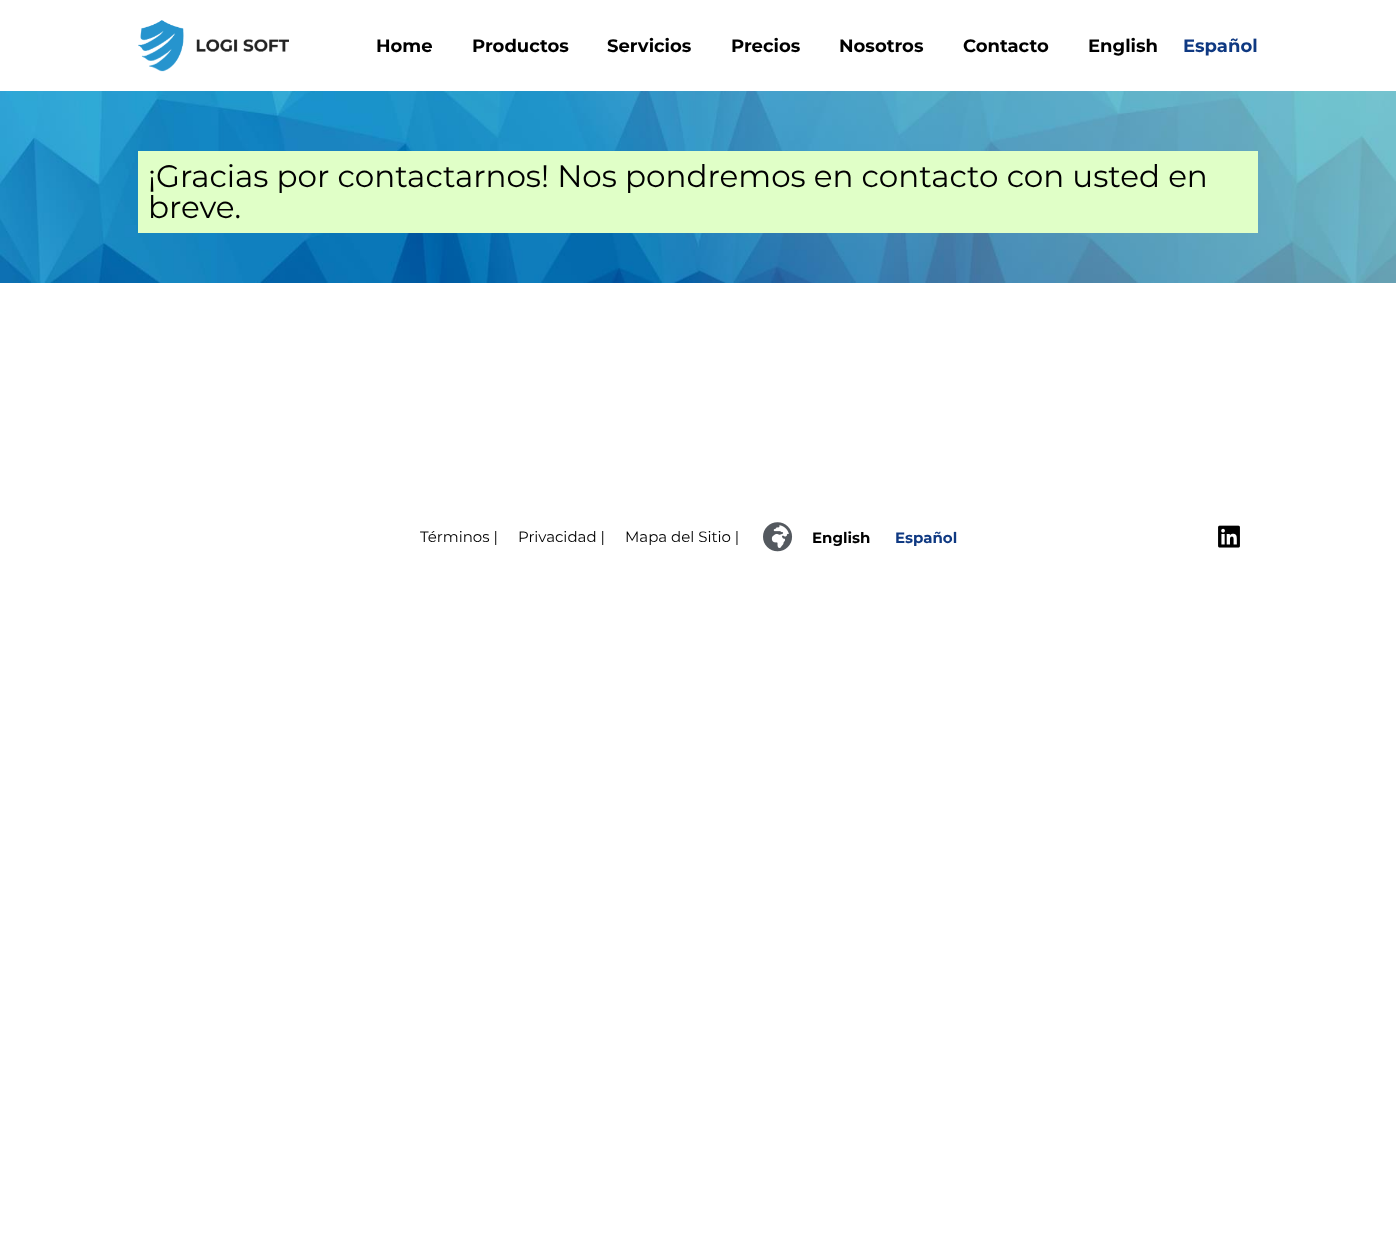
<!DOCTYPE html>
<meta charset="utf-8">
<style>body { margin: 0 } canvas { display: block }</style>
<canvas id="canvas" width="1396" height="1234"></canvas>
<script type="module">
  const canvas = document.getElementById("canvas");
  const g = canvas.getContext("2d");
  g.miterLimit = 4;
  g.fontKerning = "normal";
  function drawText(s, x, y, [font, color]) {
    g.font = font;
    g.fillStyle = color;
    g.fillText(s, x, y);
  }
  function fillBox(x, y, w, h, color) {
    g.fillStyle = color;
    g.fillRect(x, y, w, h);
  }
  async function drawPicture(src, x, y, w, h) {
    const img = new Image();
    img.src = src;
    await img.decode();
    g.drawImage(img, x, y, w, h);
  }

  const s1 = ["bold 18px Montserrat", "#000000"];
  const s2 = ["bold 18px Montserrat", "#0F3982"];
  const s3 = ["31px Montserrat", "#000000"];
  const s4 = ["15px Montserrat", "#000000"];
  const s5 = ["bold 15px Montserrat", "#000000"];
  const s6 = ["bold 15px Montserrat", "#0F3982"];

  fillBox(0, 0, 1396, 1234, "#FFFFFF");
  await drawPicture("pic1.png", 138, 20, 151, 52);
  drawText("Home", 376, 52, s1);
  drawText("Productos", 472, 52, s1);
  drawText("Servicios", 607, 52, s1);
  drawText("Precios", 731, 52, s1);
  drawText("Nosotros", 839, 52, s1);
  drawText("Contacto", 963, 52, s1);
  drawText("English", 1088, 52, s1);
  drawText("Español", 1183, 52, s2);
  await drawPicture("pic2.png", 0, 91, 1396, 192);
  fillBox(138, 151, 1120, 82, "#E0FFC7");
  drawText("¡Gracias por contactarnos! Nos pondremos en contacto con usted en", 148, 187, s3);
  drawText("breve.", 148, 218, s3);
  drawText("Términos |", 420, 542, s4);
  drawText("Privacidad |", 518, 542, s4);
  drawText("Mapa del Sitio |", 625, 542, s4);
  await drawPicture("pic3.png", 763, 522, 30, 30);
  drawText("English", 812, 543, s5);
  drawText("Español", 895, 543, s6);
  await drawPicture("pic4.png", 1218, 525, 22, 23);
</script>
